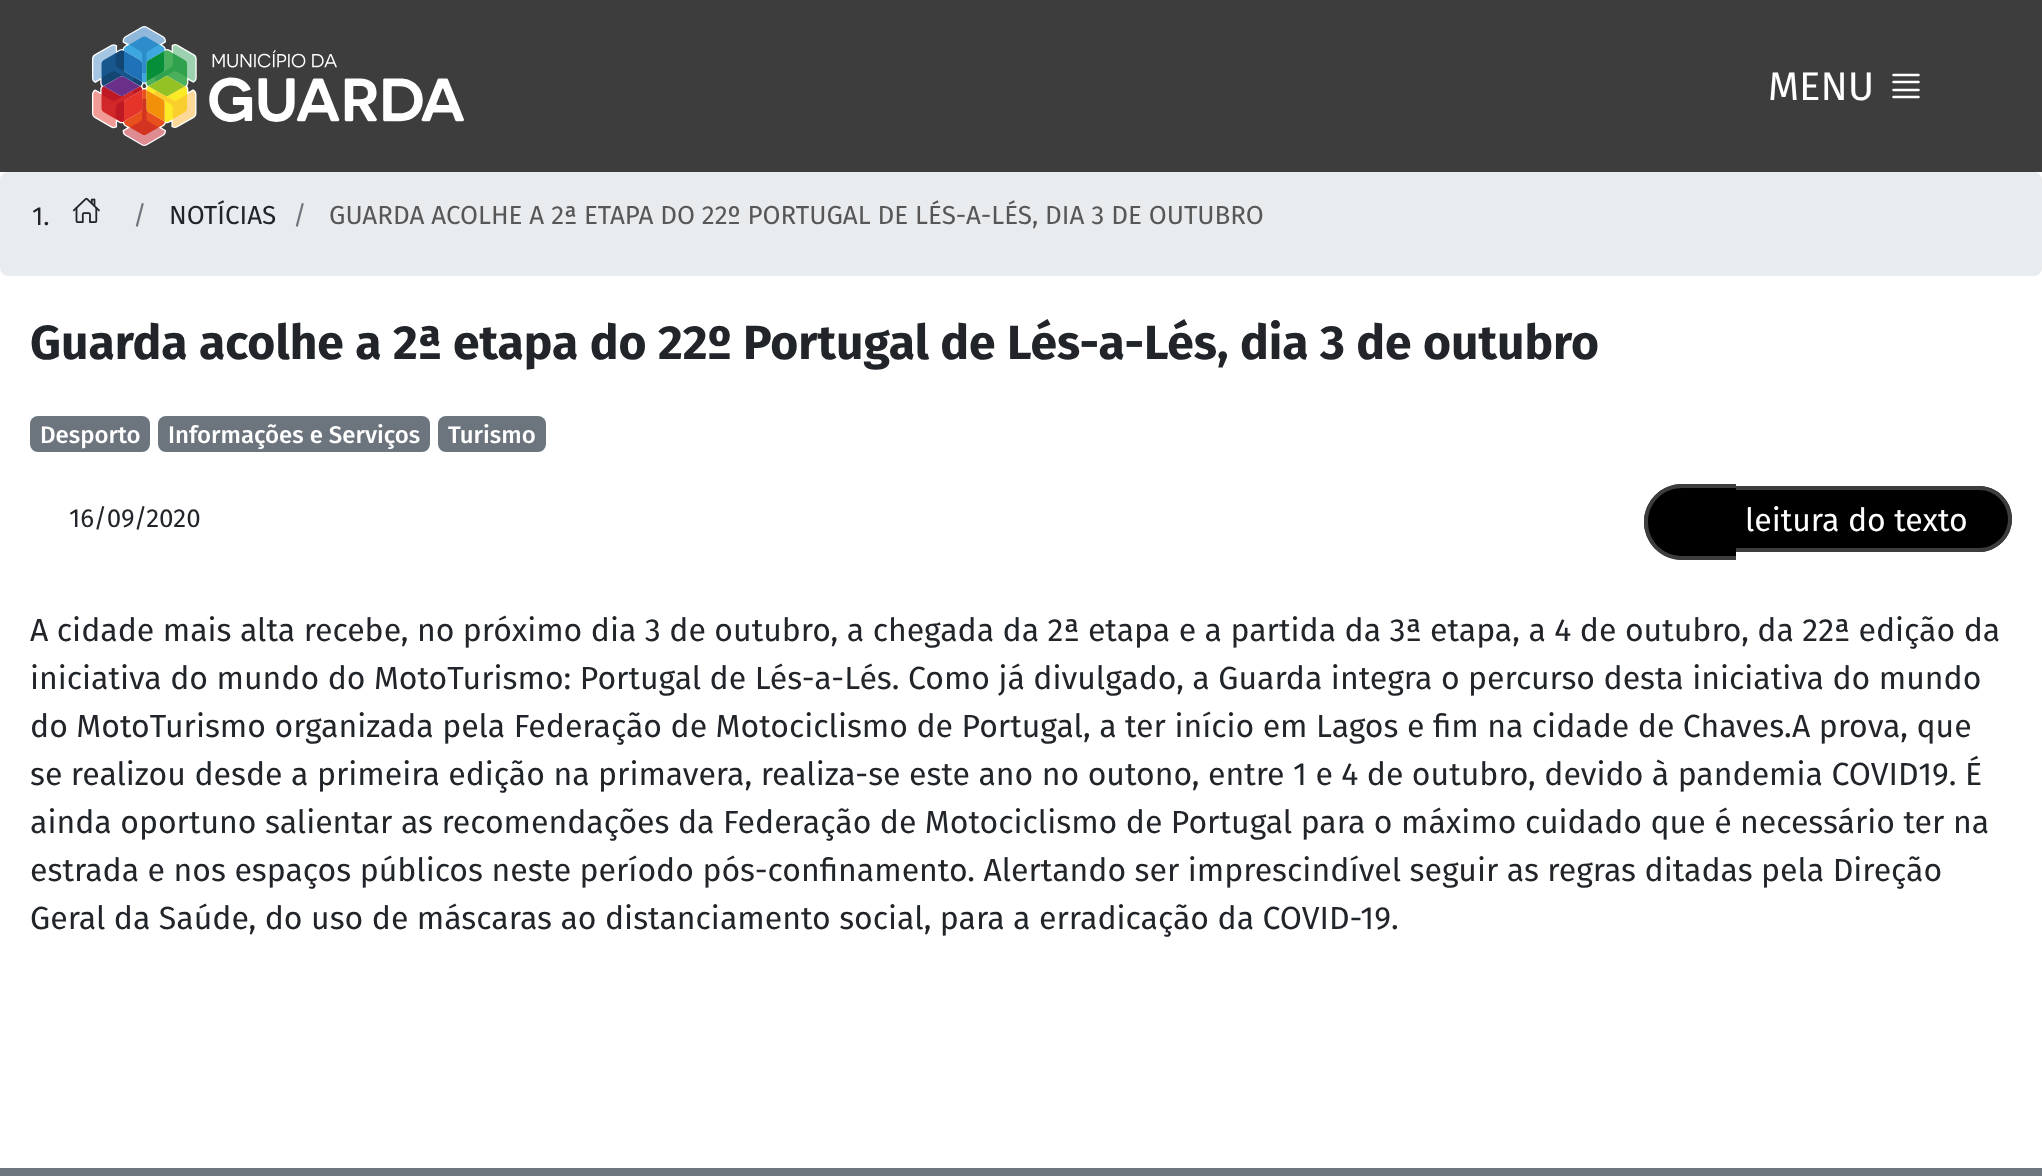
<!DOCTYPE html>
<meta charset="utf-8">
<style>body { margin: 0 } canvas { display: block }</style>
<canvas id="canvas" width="2042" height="1176"></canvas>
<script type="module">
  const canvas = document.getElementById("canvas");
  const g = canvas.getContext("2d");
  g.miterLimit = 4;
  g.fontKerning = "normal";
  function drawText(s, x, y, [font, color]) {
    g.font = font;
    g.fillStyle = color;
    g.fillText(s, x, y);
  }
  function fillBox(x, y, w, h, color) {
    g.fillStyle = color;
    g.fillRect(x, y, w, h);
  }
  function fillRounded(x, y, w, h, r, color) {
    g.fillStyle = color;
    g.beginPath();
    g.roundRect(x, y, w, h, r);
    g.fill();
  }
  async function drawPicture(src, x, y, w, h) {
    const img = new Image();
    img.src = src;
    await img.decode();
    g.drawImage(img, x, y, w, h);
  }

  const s1 = ["40px Fira Sans", "#FFFFFF"];
  const s2 = ["26px Fira Sans", "#212529"];
  const s3 = ["26px Fira Sans", "#6C757D"];
  const s4 = ["26px Fira Sans", "#575757"];
  const s5 = ["bold 48px Fira Sans", "#212529"];
  const s6 = ["500 24px Fira Sans", "#FFFFFF"];
  const s7 = ["32px Fira Sans", "#FFFFFF"];
  const s8 = ["32px Fira Sans", "#212529"];

  fillBox(0, 0, 2042, 1176, "#FFFFFF");
  fillBox(0, 0, 2042, 172, "#3D3D3D");
  await drawPicture("pic1.png", 92, 26, 372, 120);
  drawText("MENU", 1768, 100, s1);
  g.beginPath();
  g.moveTo(1893.5, 90);
  g.lineTo(1918.5, 90);
  g.moveTo(1893.5, 82);
  g.lineTo(1918.5, 82);
  g.moveTo(1893.5, 75);
  g.lineTo(1918.5, 75);
  g.moveTo(1893.5, 97);
  g.lineTo(1918.5, 97);
  g.strokeStyle = "#FFFFFF";
  g.lineWidth = 2.5;
  g.lineCap = "round";
  g.lineJoin = "round";
  g.stroke();
  fillRounded(0, 172, 2042, 104, 8, "#E9ECEF");
  drawText("1.", 32, 225, s2);
  await drawPicture("pic2.png", 72, 197, 28, 26);
  drawText("/", 133, 224, s3);
  drawText("NOTÍCIAS", 169, 224, s2);
  drawText("/", 293, 224, s3);
  drawText("GUARDA ACOLHE A 2ª ETAPA DO 22º PORTUGAL DE LÉS-A-LÉS, DIA 3 DE OUTUBRO", 329, 224, s4);
  drawText("Guarda acolhe a 2ª etapa do 22º Portugal de Lés-a-Lés, dia 3 de outubro", 30, 359, s5);
  fillRounded(30, 416, 120, 36, 8, "#6C757D");
  drawText("Desporto", 40, 443, s6);
  fillRounded(158, 416, 272, 36, 8, "#6C757D");
  drawText("Informações e Serviços", 168, 443, s6);
  fillRounded(438, 416, 108, 36, 8, "#6C757D");
  drawText("Turismo", 448, 443, s6);
  drawText("16/09/2020", 69, 527, s2);
  g.fillStyle = "#000000";
  g.beginPath();
  g.roundRect(1736, 486, 276, 66, [0, 33, 33, 0]);
  g.fill();
  g.fillStyle = "#3D3D3D";
  g.beginPath();
  g.moveTo(1736, 486);
  g.lineTo(1979, 486);
  g.bezierCurveTo(1997, 486, 2012, 501, 2012, 519);
  g.bezierCurveTo(2012, 537, 1997, 552, 1979, 552);
  g.lineTo(1736, 552);
  g.closePath();
  g.moveTo(1736, 490);
  g.lineTo(1979, 490);
  g.bezierCurveTo(1995, 490, 2008, 503, 2008, 519);
  g.bezierCurveTo(2008, 535, 1995, 548, 1979, 548);
  g.lineTo(1736, 548);
  g.closePath();
  g.fill("evenodd");
  drawText("leitura do texto", 1745, 531, s7);
  g.fillStyle = "#000000";
  g.beginPath();
  g.roundRect(1644, 484, 92, 76, [38, 0, 0, 38]);
  g.fill();
  g.fillStyle = "#3D3D3D";
  g.beginPath();
  g.moveTo(1682, 484);
  g.lineTo(1736, 484);
  g.lineTo(1736, 560);
  g.lineTo(1682, 560);
  g.bezierCurveTo(1661, 560, 1644, 543, 1644, 522);
  g.bezierCurveTo(1644, 501, 1661, 484, 1682, 484);
  g.closePath();
  g.moveTo(1682, 488);
  g.lineTo(1736, 488);
  g.lineTo(1736, 556);
  g.lineTo(1682, 556);
  g.bezierCurveTo(1663, 556, 1648, 541, 1648, 522);
  g.bezierCurveTo(1648, 503, 1663, 488, 1682, 488);
  g.closePath();
  g.fill("evenodd");
  drawText("A cidade mais alta recebe, no próximo dia 3 de outubro, a chegada da 2ª etapa e a partida da 3ª etapa, a 4 de outubro, da 22ª edição da", 30, 641, s8);
  drawText("iniciativa do mundo do MotoTurismo: Portugal de Lés-a-Lés. Como já divulgado, a Guarda integra o percurso desta iniciativa do mundo", 30, 689, s8);
  drawText("do MotoTurismo organizada pela Federação de Motociclismo de Portugal, a ter início em Lagos e fim na cidade de Chaves.A prova, que", 30, 737, s8);
  drawText("se realizou desde a primeira edição na primavera, realiza-se este ano no outono, entre 1 e 4 de outubro, devido à pandemia COVID19. É", 30, 785, s8);
  drawText("ainda oportuno salientar as recomendações da Federação de Motociclismo de Portugal para o máximo cuidado que é necessário ter na", 30, 833, s8);
  drawText("estrada e nos espaços públicos neste período pós-confinamento. Alertando ser imprescindível seguir as regras ditadas pela Direção", 30, 881, s8);
  drawText("Geral da Saúde, do uso de máscaras ao distanciamento social, para a erradicação da COVID-19.", 30, 929, s8);
  fillBox(0, 1168, 2042, 8, "#6C757D");
</script>
